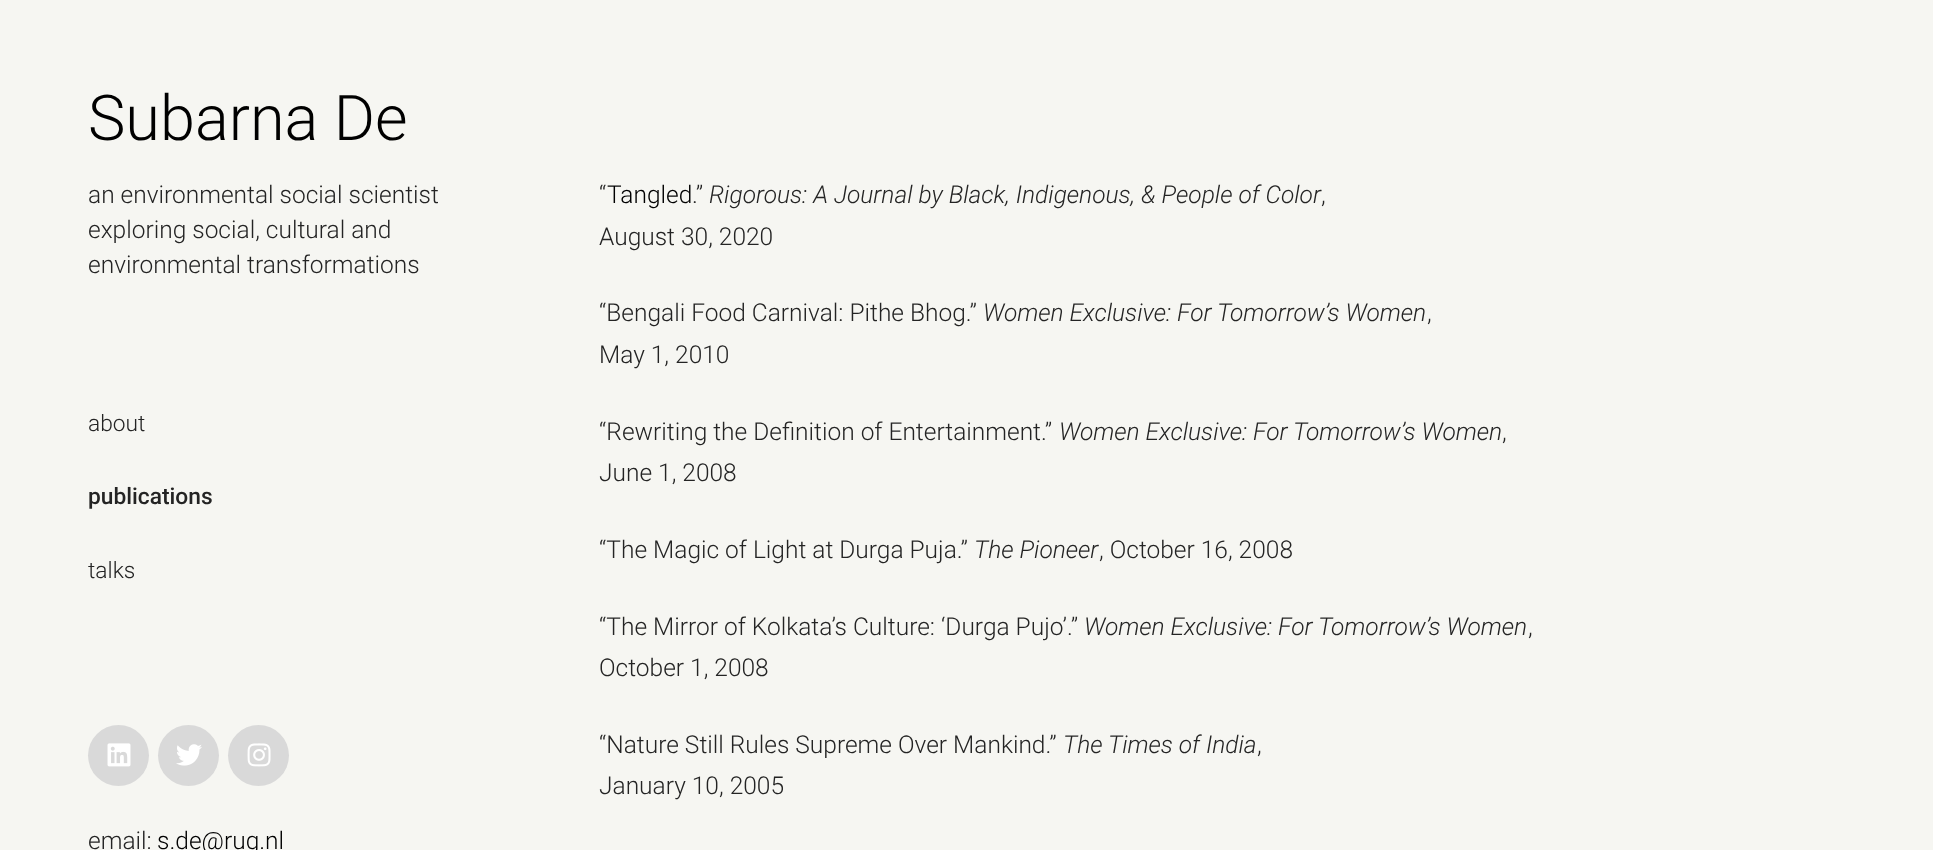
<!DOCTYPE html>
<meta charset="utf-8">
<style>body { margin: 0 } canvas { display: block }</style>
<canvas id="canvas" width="1933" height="850"></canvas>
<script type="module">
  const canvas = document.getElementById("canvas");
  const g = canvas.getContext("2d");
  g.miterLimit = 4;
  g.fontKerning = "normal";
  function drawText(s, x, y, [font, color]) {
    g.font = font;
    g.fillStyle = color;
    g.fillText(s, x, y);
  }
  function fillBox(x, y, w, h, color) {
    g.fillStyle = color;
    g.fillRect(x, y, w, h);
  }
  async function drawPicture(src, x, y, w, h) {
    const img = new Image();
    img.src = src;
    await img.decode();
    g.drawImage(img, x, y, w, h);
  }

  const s1 = ["300 63px Roboto", "#000000"];
  const s2 = ["300 24.5px Roboto", "#242424"];
  const s3 = ["300 22.75px Roboto", "#242424"];
  const s4 = ["500 22.75px Roboto", "#242424"];
  const s5 = ["300 24.5px Roboto", "#000000"];
  const s6 = ["italic 300 24.5px Roboto", "#242424"];

  fillBox(0, 0, 1933, 850, "#F6F6F2");
  drawText("Subarna De", 88, 140, s1);
  drawText("an environmental social scientist", 88, 203, s2);
  drawText("exploring social, cultural and", 88, 238, s2);
  drawText("environmental transformations", 88, 273, s2);
  drawText("about", 88, 431, s3);
  drawText("publications", 88, 504, s4);
  drawText("talks", 88, 578, s3);
  g.fillStyle = "#D9D9D9";
  g.beginPath();
  g.arc(118.5, 755.5, 30.5, 0, Math.PI * 2);
  g.fill();
  await drawPicture("pic1.png", 107, 743, 24, 24);
  g.beginPath();
  g.arc(188.5, 755.5, 30.5, 0, Math.PI * 2);
  g.fill();
  await drawPicture("pic2.png", 176, 744, 26, 22);
  g.beginPath();
  g.arc(258.5, 755.5, 30.5, 0, Math.PI * 2);
  g.fill();
  await drawPicture("pic3.png", 247, 743, 24, 24);
  drawText("email:", 88, 849, s2);
  drawText("s.de@rug.nl", 157, 849, s5);
  drawText("“", 599, 203, s2);
  drawText("Tangled", 607, 203, s5);
  drawText(".”", 692, 203, s2);
  drawText("Rigorous: A Journal by Black, Indigenous, & People of Color", 709, 203, s6);
  drawText(",", 1321, 203, s2);
  drawText("August 30, 2020", 599, 245, s2);
  drawText("“Bengali Food Carnival: Pithe Bhog.”", 599, 321, s2);
  drawText("Women Exclusive: For Tomorrow’s Women", 983, 321, s6);
  drawText(",", 1427, 321, s2);
  drawText("May 1, 2010", 599, 363, s2);
  drawText("“Rewriting the Definition of Entertainment.”", 599, 440, s2);
  drawText("Women Exclusive: For Tomorrow’s Women", 1059, 440, s6);
  drawText(",", 1502, 440, s2);
  drawText("June 1, 2008", 599, 481, s2);
  drawText("“The Magic of Light at Durga Puja.”", 599, 558, s2);
  drawText("The Pioneer", 974, 558, s6);
  drawText(", October 16, 2008", 1099, 558, s2);
  drawText("“The Mirror of Kolkata’s Culture: ‘Durga Pujo’.”", 599, 635, s2);
  drawText("Women Exclusive: For Tomorrow’s Women", 1084, 635, s6);
  drawText(",", 1528, 635, s2);
  drawText("October 1, 2008", 599, 676, s2);
  drawText("“Nature Still Rules Supreme Over Mankind.”", 599, 753, s2);
  drawText("The Times of India", 1063, 753, s6);
  drawText(",", 1257, 753, s2);
  drawText("January 10, 2005", 599, 794, s2);
</script>
